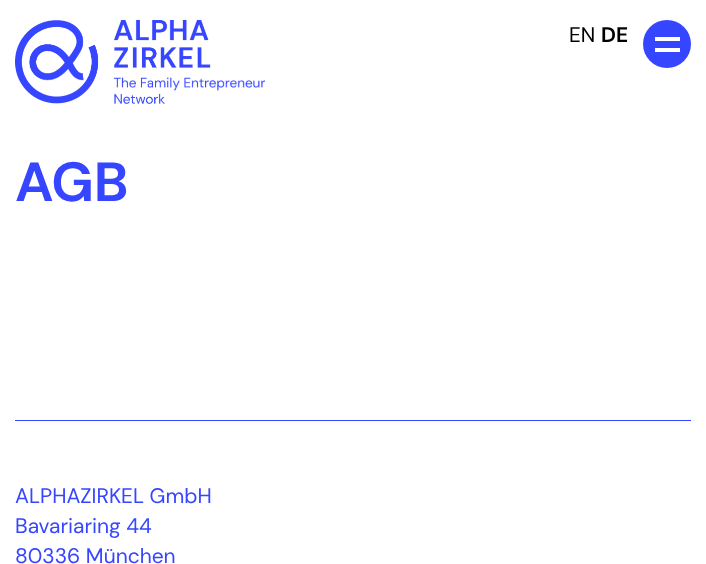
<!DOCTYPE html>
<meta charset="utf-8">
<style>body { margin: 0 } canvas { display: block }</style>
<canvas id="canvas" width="706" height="564"></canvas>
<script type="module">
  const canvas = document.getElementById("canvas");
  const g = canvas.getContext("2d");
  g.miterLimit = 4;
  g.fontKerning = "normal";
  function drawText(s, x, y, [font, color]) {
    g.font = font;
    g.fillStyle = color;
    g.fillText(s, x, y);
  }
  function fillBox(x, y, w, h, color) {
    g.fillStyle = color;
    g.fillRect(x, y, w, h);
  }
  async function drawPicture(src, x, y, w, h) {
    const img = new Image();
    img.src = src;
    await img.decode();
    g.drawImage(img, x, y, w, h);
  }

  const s1 = ["21px DM Sans", "#000000"];
  const s2 = ["bold 21px DM Sans", "#000000"];
  const s3 = ["bold 55px DM Sans", "#3645FF"];
  const s4 = ["21px DM Sans", "#3645FF"];

  fillBox(0, 0, 706, 564, "#FFFFFF");
  await drawPicture("pic1.png", 15, 20, 250, 84);
  drawText("EN", 569, 42, s1);
  drawText("DE", 601, 42, s2);
  g.fillStyle = "#3645FF";
  g.beginPath();
  g.arc(667, 44, 24, 0, Math.PI * 2);
  g.fill();
  fillBox(655, 37, 25, 4, "#FFFFFF");
  fillBox(655, 48, 25, 4, "#FFFFFF");
  drawText("AGB", 15, 201, s3);
  fillBox(15, 420, 676, 1, "#3645FF");
  drawText("ALPHAZIRKEL GmbH", 15, 503, s4);
  drawText("Bavariaring 44", 15, 533, s4);
  drawText("80336 München", 15, 563, s4);
</script>
